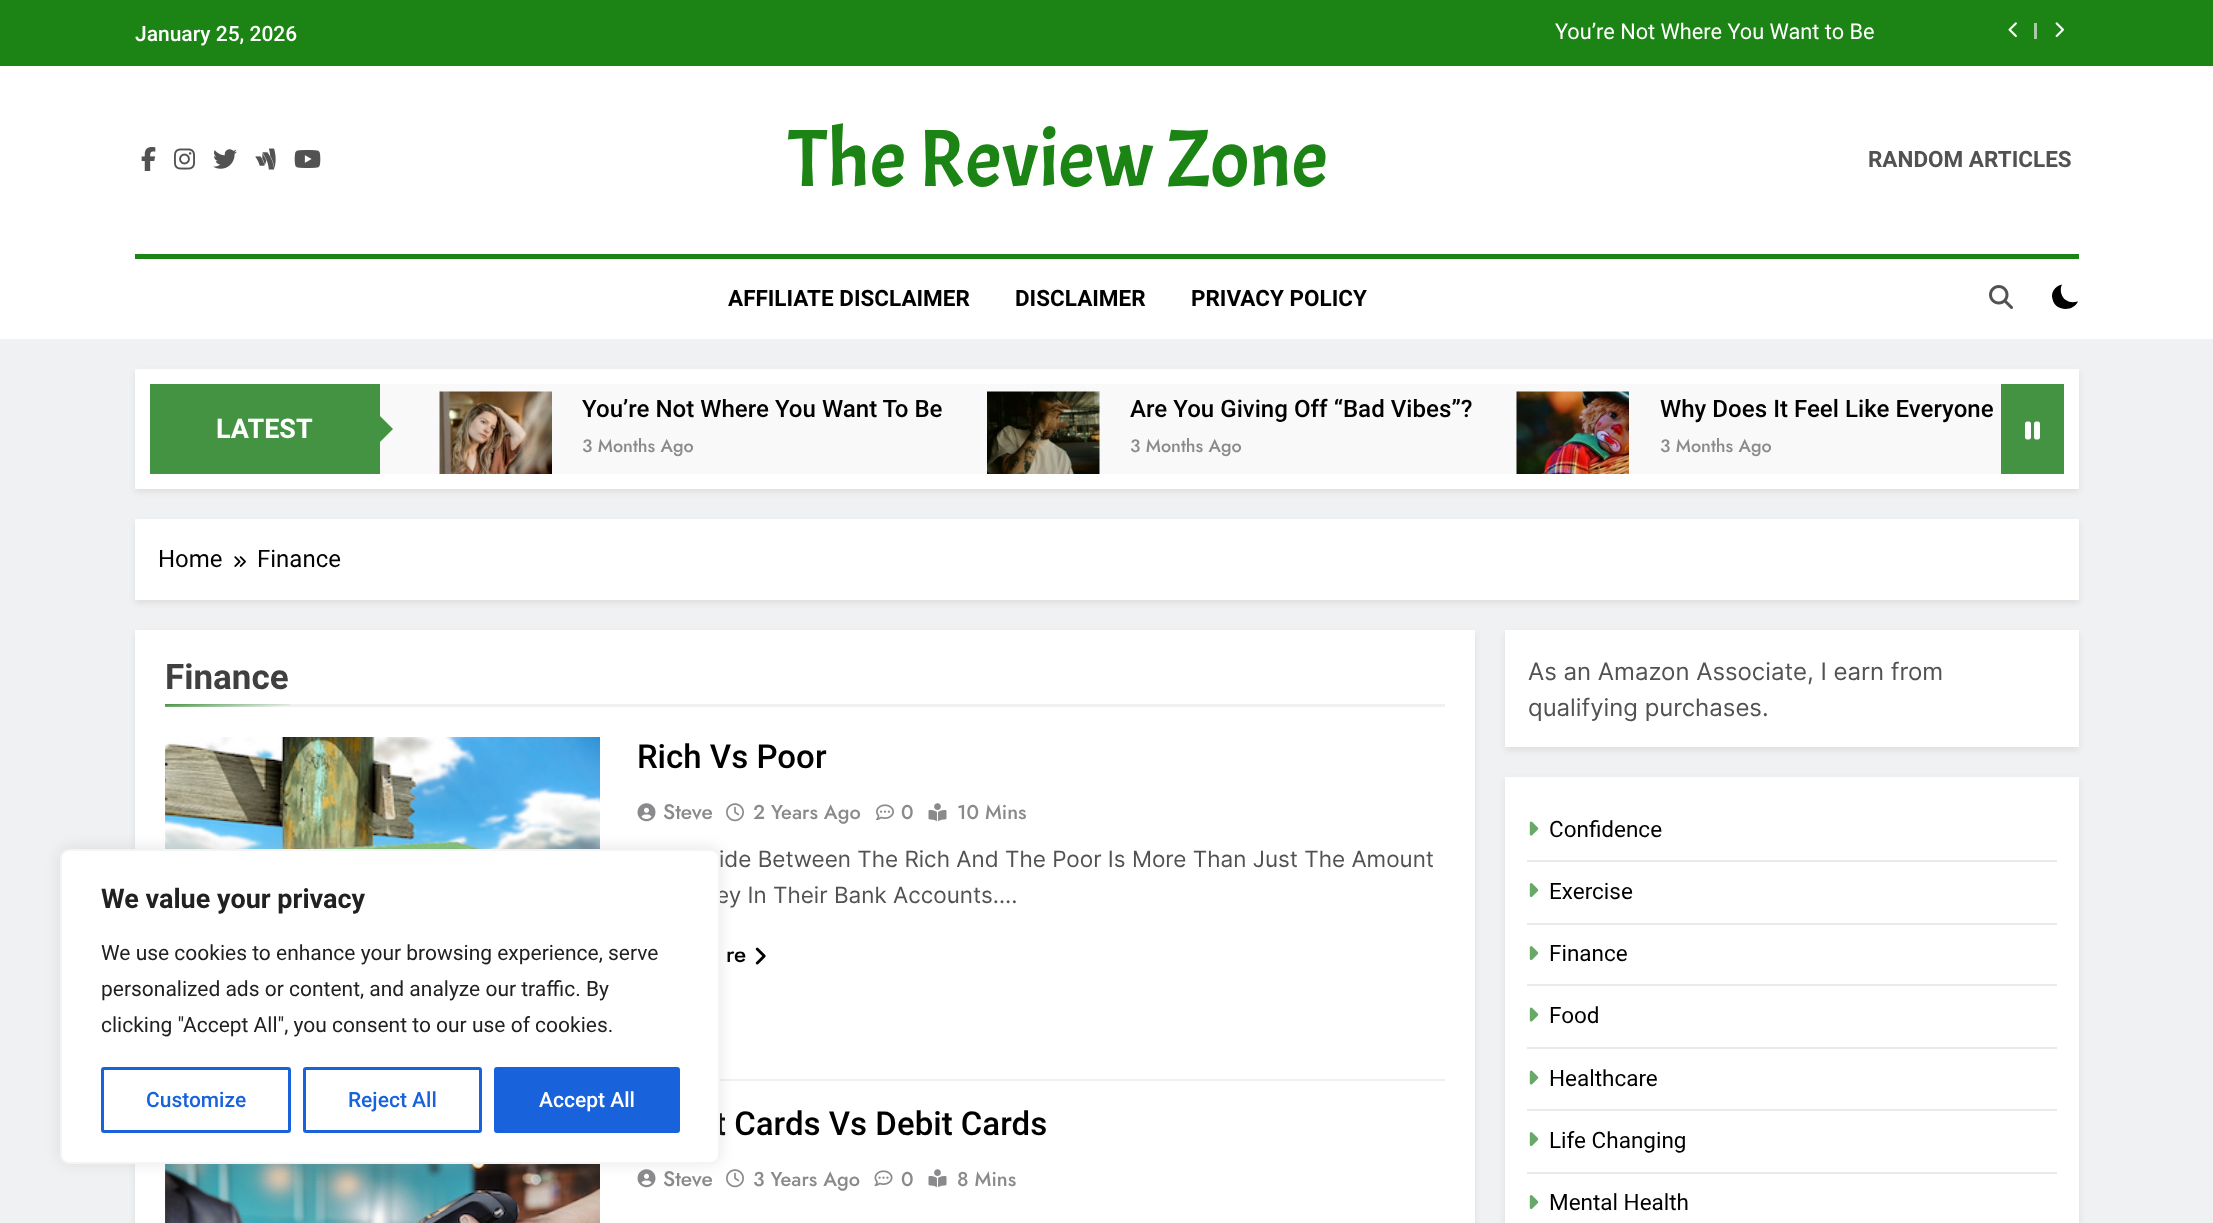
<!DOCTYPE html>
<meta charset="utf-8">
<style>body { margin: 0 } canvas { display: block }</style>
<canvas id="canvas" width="2213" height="1223"></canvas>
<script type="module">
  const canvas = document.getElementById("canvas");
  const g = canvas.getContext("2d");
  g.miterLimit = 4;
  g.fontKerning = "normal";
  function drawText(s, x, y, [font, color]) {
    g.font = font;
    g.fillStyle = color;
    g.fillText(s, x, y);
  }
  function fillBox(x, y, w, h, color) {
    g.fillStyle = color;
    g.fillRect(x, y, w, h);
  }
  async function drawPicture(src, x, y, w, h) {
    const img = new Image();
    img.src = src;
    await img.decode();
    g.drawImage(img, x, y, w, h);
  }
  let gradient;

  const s1 = ["500 21px Roboto", "#FFFFFF"];
  const s2 = ["21.75px Roboto", "#FFFFFF"];
  const s3 = ["81px Acme", "#1B8415"];
  const s4 = ["bold 22.5px Roboto", "#525252"];
  const s5 = ["bold 22.5px Roboto", "#000000"];
  const s6 = ["bold 27px Roboto", "#FFFFFF"];
  const s7 = ["500 24.1px Roboto", "#000000"];
  const s8 = ["500 18px Jost", "#8A8A8C"];
  const s9 = ["24px Roboto", "#000000"];
  const s10 = ["bold 35px Roboto", "#404040"];
  const s11 = ["500 33px Roboto", "#000000"];
  const s12 = ["500 21px Jost", "#8A8A8C"];
  const s13 = ["500 20px Jost", "#8A8A8C"];
  const s14 = ["22.5px Inter", "#525252"];
  const s15 = ["500 22.5px Jost", "#000000"];
  const s16 = ["24px Inter", "#525252"];
  const s17 = ["22.5px Roboto", "#000000"];
  const s18 = ["bold 27px Roboto", "#212121"];
  const s19 = ["21px Roboto", "#212121"];
  const s20 = ["500 21px Roboto", "#1863DC"];

  fillBox(0, 0, 2213, 1223, "#F0F1F2");
  fillBox(0, 0, 2213, 66, "#1B8415");
  drawText("January 25, 2026", 135, 41, s1);
  drawText("You’re Not Where You Want to Be", 1555, 39, s2);
  await drawPicture("pic1.png", 2008, 22, 9, 15);
  fillBox(2034, 23, 3, 16, "#A4CEA1");
  await drawPicture("pic2.png", 2055, 22, 9, 15);
  fillBox(0, 66, 2213, 273, "#FFFFFF");
  await drawPicture("pic3.png", 141, 147, 15, 24);
  await drawPicture("pic4.png", 174, 148, 21, 22);
  await drawPicture("pic5.png", 213, 149, 24, 20);
  await drawPicture("pic6.png", 255, 148, 21, 22);
  await drawPicture("pic7.png", 294, 150, 27, 18);
  drawText("The Review Zone", 788, 186, s3);
  drawText("RANDOM ARTICLES", 1868, 167, s4);
  fillBox(135, 254, 1944, 5, "#1B8415");
  drawText("AFFILIATE DISCLAIMER", 728, 306, s5);
  drawText("DISCLAIMER", 1015, 306, s5);
  drawText("PRIVACY POLICY", 1191, 306, s5);
  await drawPicture("pic8.png", 1989, 285, 24, 24);
  g.beginPath();
  g.moveTo(2078, 301.5);
  g.lineTo(2075, 302);
  g.bezierCurveTo(2063, 303.5, 2058.5, 292, 2062, 284.5);
  g.bezierCurveTo(2058.5, 285, 2055.5, 287.5, 2053.5, 290.5);
  g.bezierCurveTo(2052, 293, 2051.5, 296, 2052.5, 299);
  g.bezierCurveTo(2054.5, 311, 2073, 312.5, 2078, 301.5);
  g.closePath();
  g.fill();
  g.fillStyle = "rgba(0, 0, 0, 0.08)";
  g.filter = "blur(3px)";
  g.beginPath();
  g.rect(135, 372, 1944, 120);
  g.fill();
  g.filter = "none";
  fillBox(135, 369, 1944, 120, "#FFFFFF");
  fillBox(150, 384, 230, 90, "#449342");
  drawText("LATEST", 216, 438, s6);
  fillBox(380, 384, 1621, 90, "#F9F9F9");
  g.fillStyle = "#449342";
  g.beginPath();
  g.moveTo(378, 444);
  g.lineTo(378, 414);
  g.lineTo(393, 429);
  g.closePath();
  g.fill();
  await drawPicture("pic9.png", 439, 391, 113, 83);
  drawText("You’re Not Where You Want To Be", 582, 417, s7);
  drawText("3 Months Ago", 582, 452, s8);
  await drawPicture("pic10.png", 987, 391, 113, 83);
  drawText("Are You Giving Off “Bad Vibes”?", 1130, 417, s7);
  drawText("3 Months Ago", 1130, 452, s8);
  await drawPicture("pic11.png", 1516, 391, 113, 83);
  drawText("Why Does It Feel Like Everyone", 1660, 417, s7);
  drawText("3 Months Ago", 1660, 452, s8);
  fillBox(2001, 384, 63, 90, "#449342");
  await drawPicture("pic12.png", 2025, 421, 15, 19);
  g.fillStyle = "rgba(0, 0, 0, 0.08)";
  g.filter = "blur(3px)";
  g.beginPath();
  g.rect(135, 522, 1944, 81);
  g.fill();
  g.filter = "none";
  fillBox(135, 519, 1944, 81, "#FFFFFF");
  drawText("Home", 158, 567, s9);
  await drawPicture("pic13.png", 234, 556, 12, 11);
  drawText("Finance", 257, 567, s9);
  g.fillStyle = "rgba(0, 0, 0, 0.08)";
  g.filter = "blur(3px)";
  g.beginPath();
  g.rect(135, 633, 1340, 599);
  g.fill();
  g.filter = "none";
  fillBox(135, 630, 1340, 593, "#FFFFFF");
  fillBox(290, 704, 1155, 3, "#F0F0F0");
  drawText("Finance", 165, 689, s10);
  gradient = g.createLinearGradient(227, 699, 228, 711);
  gradient.addColorStop(0, "#449342");
  gradient.addColorStop(1, "#F0F0F0");
  g.fillStyle = gradient;
  g.fillRect(165, 704, 125, 3);
  fillBox(720, 1079, 725, 2, "#F0F0F0");
  await drawPicture("pic14.png", 165, 737, 435, 112);
  drawText("Rich Vs Poor", 637, 768, s11);
  await drawPicture("pic15.png", 637, 803, 19, 19);
  drawText("Steve", 663, 819, s12);
  await drawPicture("pic16.png", 726, 803, 18, 19);
  drawText("2 Years Ago", 753, 819, s13);
  await drawPicture("pic17.png", 876, 804, 18, 17);
  drawText("0", 901, 819, s13);
  await drawPicture("pic18.png", 928, 803, 19, 19);
  drawText("10 Mins", 957, 819, s13);
  drawText("ide Between The Rich And The Poor Is More Than Just The Amount", 719, 867, s14);
  drawText("ey In Their Bank Accounts….", 716, 903, s14);
  drawText("re", 726, 962, s15);
  await drawPicture("pic19.png", 755, 947, 11, 18);
  await drawPicture("pic20.png", 165, 1164, 435, 59);
  drawText("t Cards Vs Debit Cards", 715, 1135, s11);
  await drawPicture("pic15.png", 637, 1169, 19, 19);
  drawText("Steve", 663, 1186, s12);
  await drawPicture("pic16.png", 726, 1169, 18, 19);
  drawText("3 Years Ago", 753, 1186, s13);
  await drawPicture("pic21.png", 874, 1170, 19, 17);
  drawText("0", 901, 1186, s13);
  await drawPicture("pic18.png", 928, 1169, 19, 19);
  drawText("8 Mins", 957, 1186, s13);
  g.fillStyle = "rgba(0, 0, 0, 0.08)";
  g.filter = "blur(3px)";
  g.beginPath();
  g.rect(1505, 633, 574, 117);
  g.fill();
  g.filter = "none";
  fillBox(1505, 630, 574, 117, "#FFFFFF");
  drawText("As an Amazon Associate, I earn from", 1528, 680, s16);
  drawText("qualifying purchases.", 1528, 716, s16);
  g.fillStyle = "rgba(0, 0, 0, 0.08)";
  g.filter = "blur(3px)";
  g.beginPath();
  g.rect(1505, 780, 574, 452);
  g.fill();
  g.filter = "none";
  fillBox(1505, 777, 574, 446, "#FFFFFF");
  fillBox(1527, 860, 530, 2, "#EAEAEA");
  await drawPicture("pic22.png", 1529, 821, 10, 15);
  drawText("Confidence", 1549, 837, s17);
  fillBox(1527, 923, 530, 2, "#EAEAEA");
  await drawPicture("pic23.png", 1529, 883, 10, 15);
  drawText("Exercise", 1549, 899, s17);
  fillBox(1527, 984, 530, 2, "#EAEAEA");
  await drawPicture("pic23.png", 1529, 946, 10, 15);
  drawText("Finance", 1549, 961, s17);
  fillBox(1527, 1047, 530, 2, "#EAEAEA");
  await drawPicture("pic22.png", 1529, 1007, 10, 15);
  drawText("Food", 1549, 1023, s17);
  fillBox(1527, 1109, 530, 2, "#EAEAEA");
  await drawPicture("pic22.png", 1529, 1070, 10, 15);
  drawText("Healthcare", 1549, 1086, s17);
  fillBox(1527, 1172, 530, 2, "#EAEAEA");
  await drawPicture("pic23.png", 1529, 1132, 10, 15);
  drawText("Life Changing", 1549, 1148, s17);
  await drawPicture("pic23.png", 1529, 1195, 10, 15);
  drawText("Mental Health", 1549, 1210, s17);
  g.fillStyle = "rgba(172, 171, 171, 0.3)";
  g.filter = "blur(7.5px)";
  g.beginPath();
  g.roundRect(60, 848, 660, 315, 9);
  g.fill();
  g.filter = "none";
  g.fillStyle = "#FFFFFF";
  g.beginPath();
  g.roundRect(61, 850, 658, 313, 8);
  g.fill();
  g.strokeStyle = "#F4F4F4";
  g.lineWidth = 2;
  g.stroke();
  drawText("We value your privacy", 101, 908, s18);
  drawText("We use cookies to enhance your browsing experience, serve", 101, 960, s19);
  drawText("personalized ads or content, and analyze our traffic. By", 101, 996, s19);
  drawText("clicking \"Accept All\", you consent to our use of cookies.", 101, 1032, s19);
  g.beginPath();
  g.roundRect(102.5, 1068.5, 187, 63, 1.5);
  g.strokeStyle = "#1863DC";
  g.lineWidth = 3;
  g.stroke();
  drawText("Customize", 146, 1107, s20);
  g.beginPath();
  g.roundRect(304.5, 1068.5, 176, 63, 1.5);
  g.stroke();
  drawText("Reject All", 348, 1107, s20);
  g.beginPath();
  g.roundRect(495.5, 1068.5, 183, 63, 1.5);
  g.fill();
  g.stroke();
  drawText("Accept All", 539, 1107, s1);
</script>
